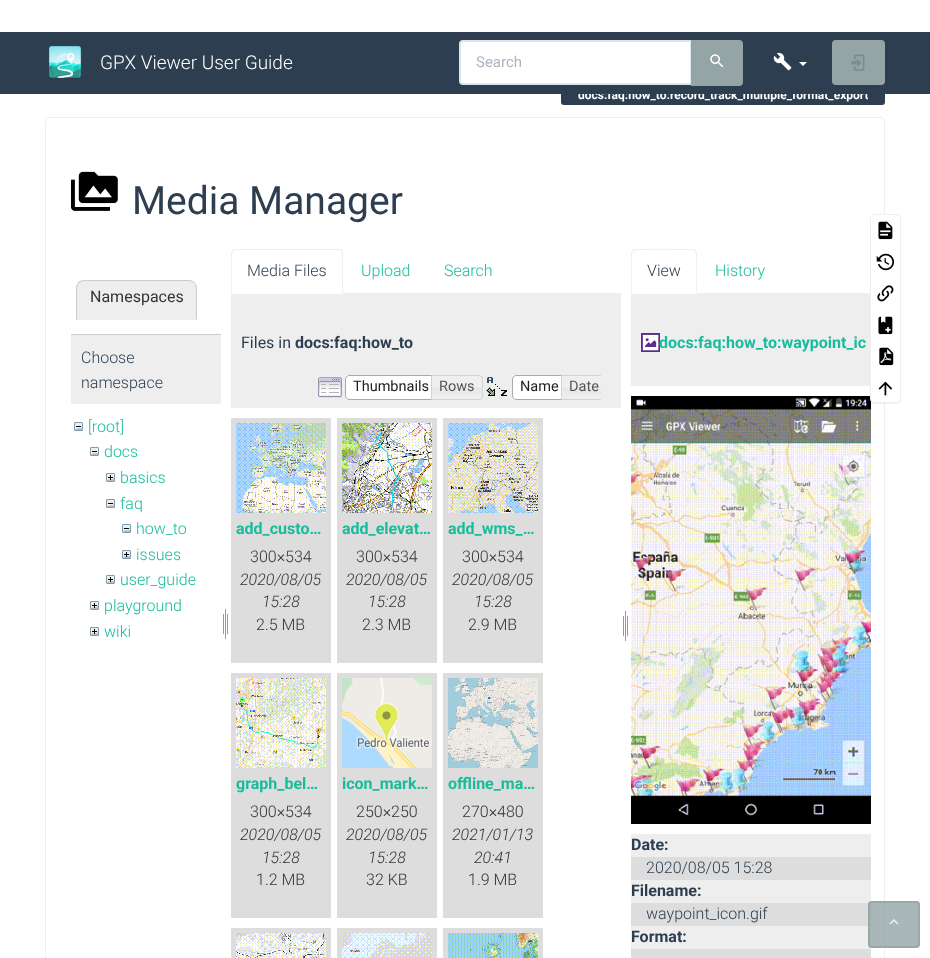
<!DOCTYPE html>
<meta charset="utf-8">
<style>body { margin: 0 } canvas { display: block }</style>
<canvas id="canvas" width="930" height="958"></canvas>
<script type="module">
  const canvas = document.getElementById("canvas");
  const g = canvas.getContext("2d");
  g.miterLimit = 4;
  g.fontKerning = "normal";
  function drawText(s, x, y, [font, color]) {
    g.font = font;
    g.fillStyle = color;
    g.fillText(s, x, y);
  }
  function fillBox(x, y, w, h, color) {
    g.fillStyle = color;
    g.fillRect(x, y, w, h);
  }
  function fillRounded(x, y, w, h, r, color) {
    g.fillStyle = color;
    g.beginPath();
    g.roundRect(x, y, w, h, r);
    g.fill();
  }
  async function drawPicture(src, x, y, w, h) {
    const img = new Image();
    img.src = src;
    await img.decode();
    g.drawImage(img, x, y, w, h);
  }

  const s1 = ["bold 12px Roboto", "#FFFFFF"];
  const s2 = ["300 19px Roboto", "#FFFFFF"];
  const s3 = ["15px Roboto", "#ACB6C0"];
  const s4 = ["39px Roboto", "#2C3E50"];
  const s5 = ["16px Roboto", "#333333"];
  const s6 = ["300 16px Roboto", "#2C3E50"];
  const s7 = ["300 16px Roboto", "#18BC9C"];
  const s8 = ["16px Roboto", "#2C3E50"];
  const s9 = ["bold 16px Roboto", "#2C3E50"];
  const s10 = ["14.5px Roboto", "#212121"];
  const s11 = ["14.5px Roboto", "#555555"];
  const s12 = ["bold 16px Roboto", "#18BC9C"];
  const s13 = ["300 16px Roboto", "#333333"];
  const s14 = ["italic 300 16px Roboto", "#333333"];

  fillBox(0, 0, 930, 958, "#FFFFFF");
  fillBox(578, 94, 290, 11, "#2C3E50");
  drawText("docs:faq:how_to:record_track_multiple_format_export", 578, 99, s1);
  g.fillStyle = "#2C3E50";
  g.beginPath();
  g.roundRect(561, 85, 17, 20, [3, 0, 0, 3]);
  g.fill();
  g.beginPath();
  g.roundRect(868, 85, 17, 20, [0, 3, 3, 0]);
  g.fill();
  fillBox(0, 32, 930, 62, "#2C3E50");
  await drawPicture("pic1.png", 48, 46, 34, 33);
  drawText("GPX Viewer User Guide", 100, 69, s2);
  g.beginPath();
  g.roundRect(460, 41, 231, 43, [3, 0, 0, 3]);
  g.fill();
  g.strokeStyle = "#DCE4EC";
  g.lineWidth = 2;
  g.stroke();
  drawText("Search", 476, 67, s3);
  g.fillStyle = "#95A5A6";
  g.beginPath();
  g.roundRect(692, 41, 50, 44, [0, 3, 3, 0]);
  g.fill();
  g.strokeStyle = "#95A5A6";
  g.stroke();
  await drawPicture("pic2.png", 710, 54, 14, 14);
  await drawPicture("pic3.png", 773, 52, 19, 19);
  g.fillStyle = "#FFFFFF";
  g.beginPath();
  g.moveTo(799, 62);
  g.lineTo(807, 62);
  g.lineTo(803, 66);
  g.closePath();
  g.fill();
  g.fillStyle = "#95A5A6";
  g.beginPath();
  g.roundRect(833, 41, 51, 43, 3);
  g.fill();
  g.stroke();
  await drawPicture("pic4.png", 851, 54, 14, 17);
  g.beginPath();
  g.roundRect(45.5, 117.5, 839, 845, 3.5);
  g.strokeStyle = "#ECF0F1";
  g.lineWidth = 1;
  g.stroke();
  await drawPicture("pic5.png", 71, 171, 47, 40);
  drawText("Media Manager", 132, 214, s4);
  g.fillStyle = "#EEEEEE";
  g.beginPath();
  g.roundRect(76, 280, 121, 40, [8, 8, 0, 0]);
  g.fill();
  g.fillStyle = "#CCCCCC";
  g.beginPath();
  g.moveTo(84, 280);
  g.bezierCurveTo(82, 280, 80, 281, 78, 282);
  g.lineTo(79, 283);
  g.bezierCurveTo(80, 282, 82, 281, 84, 281);
  g.lineTo(189, 281);
  g.bezierCurveTo(191, 281, 193, 282, 194, 283);
  g.lineTo(194, 282);
  g.bezierCurveTo(193, 281, 191, 280, 189, 280);
  g.closePath();
  g.fill();
  g.beginPath();
  g.moveTo(197, 320);
  g.lineTo(197, 288);
  g.bezierCurveTo(197, 286, 196, 284, 194.5, 282.5);
  g.lineTo(194, 283);
  g.bezierCurveTo(195, 284, 196, 286, 196, 288);
  g.lineTo(196, 319);
  g.closePath();
  g.fill();
  g.fillStyle = "#EEEEEE";
  g.beginPath();
  g.moveTo(197, 320);
  g.lineTo(196, 319);
  g.lineTo(77, 319);
  g.lineTo(76, 320);
  g.closePath();
  g.fill();
  g.fillStyle = "#CCCCCC";
  g.beginPath();
  g.moveTo(76, 320);
  g.lineTo(77, 319);
  g.lineTo(77, 288);
  g.bezierCurveTo(77, 286, 78, 284, 79, 283);
  g.lineTo(78.5, 282.5);
  g.bezierCurveTo(77, 284, 76, 286, 76, 288);
  g.closePath();
  g.fill();
  drawText("Namespaces", 90, 302, s5);
  fillBox(71, 335, 150, 69, "#EEEEEE");
  fillBox(71, 334, 150, 1, "#CCCCCC");
  drawText("Choose", 81, 363, s6);
  drawText("namespace", 81, 388, s6);
  await drawPicture("pic6.png", 74, 422, 9, 9);
  drawText("[root]", 88, 432, s7);
  await drawPicture("pic6.png", 90, 447, 9, 9);
  drawText("docs", 104, 457, s7);
  await drawPicture("pic7.png", 106, 473, 9, 9);
  drawText("basics", 120, 483, s7);
  await drawPicture("pic6.png", 106, 499, 9, 9);
  drawText("faq", 120, 509, s7);
  await drawPicture("pic6.png", 122, 524, 9, 9);
  drawText("how_to", 136, 534, s7);
  await drawPicture("pic7.png", 122, 550, 9, 9);
  drawText("issues", 136, 560, s7);
  await drawPicture("pic7.png", 106, 575, 9, 9);
  drawText("user_guide", 120, 585, s7);
  await drawPicture("pic7.png", 90, 601, 9, 9);
  drawText("playground", 104, 611, s7);
  await drawPicture("pic7.png", 90, 627, 9, 9);
  drawText("wiki", 104, 637, s7);
  await drawPicture("pic8.png", 223, 608, 5, 31);
  fillBox(343, 293, 278, 1, "#ECF0F1");
  g.beginPath();
  g.moveTo(235, 249);
  g.lineTo(232, 250);
  g.lineTo(233, 251);
  g.lineTo(235, 250);
  g.lineTo(339, 250);
  g.lineTo(341, 251);
  g.lineTo(342, 250);
  g.lineTo(339, 249);
  g.closePath();
  g.fill();
  g.beginPath();
  g.moveTo(343, 294);
  g.lineTo(343, 253);
  g.bezierCurveTo(343, 252, 342, 251, 342, 250);
  g.lineTo(341, 251);
  g.bezierCurveTo(343, 253, 342, 288, 342, 293);
  g.closePath();
  g.fill();
  g.beginPath();
  g.moveTo(231, 294);
  g.lineTo(232, 293);
  g.bezierCurveTo(232, 288, 231, 253, 233, 251);
  g.lineTo(232, 250);
  g.lineTo(231, 253);
  g.closePath();
  g.fill();
  drawText("Media Files", 247, 276, s6);
  drawText("Upload", 361, 276, s7);
  drawText("Search", 444, 276, s7);
  fillBox(231, 294, 390, 114, "#EEEEEE");
  drawText("Files in", 241, 348, s8);
  drawText("docs:faq:how_to", 295, 348, s9);
  await drawPicture("pic9.png", 318, 377, 24, 21);
  fillBox(345, 375, 86, 25, "#FFFFFF");
  g.beginPath();
  g.roundRect(345.5, 375.5, 91, 24, [3.5, 0, 0, 3.5]);
  g.strokeStyle = "#AAAAAA";
  g.stroke();
  drawText("Thumbnails", 353, 391, s10);
  await drawPicture("pic10.png", 432, 375, 51, 25);
  g.beginPath();
  g.roundRect(431.5, 375.5, 51, 24, [0, 3.5, 3.5, 0]);
  g.strokeStyle = "#D3D3D3";
  g.stroke();
  drawText("Rows", 439, 391, s11);
  await drawPicture("pic11.png", 486, 377, 21, 19);
  fillBox(512, 375, 49, 25, "#FFFFFF");
  g.beginPath();
  g.roundRect(512.5, 375.5, 54, 24, [3.5, 0, 0, 3.5]);
  g.strokeStyle = "#AAAAAA";
  g.stroke();
  drawText("Name", 520, 391, s10);
  await drawPicture("pic12.png", 562, 376, 39, 23);
  g.save();
  g.beginPath();
  g.rect(310, 375, 291, 25);
  g.clip();
  g.beginPath();
  g.roundRect(561.5, 375.5, 45, 24, [0, 3.5, 3.5, 0]);
  g.strokeStyle = "#D3D3D3";
  g.stroke();
  g.restore();
  drawText("Date", 569, 391, s11);
  fillBox(231, 418, 100, 245, "#DDDDDD");
  await drawPicture("pic13.png", 236, 423, 90, 90);
  drawText("add_custo…", 236, 534, s12);
  drawText("300×534", 250, 562, s13);
  drawText("2020/08/05", 240, 585, s14);
  drawText("15:28", 262, 607, s14);
  drawText("2.5 MB", 256, 630, s13);
  fillBox(337, 418, 100, 245, "#DDDDDD");
  await drawPicture("pic14.png", 342, 423, 90, 90);
  drawText("add_elevat…", 342, 534, s12);
  drawText("300×534", 356, 562, s13);
  drawText("2020/08/05", 346, 585, s14);
  drawText("15:28", 368, 607, s14);
  drawText("2.3 MB", 362, 630, s13);
  fillBox(443, 418, 100, 245, "#DDDDDD");
  await drawPicture("pic15.png", 448, 423, 90, 90);
  drawText("add_wms_…", 448, 534, s12);
  drawText("300×534", 462, 562, s13);
  drawText("2020/08/05", 452, 585, s14);
  drawText("15:28", 474, 607, s14);
  drawText("2.9 MB", 468, 630, s13);
  fillBox(231, 673, 100, 245, "#DDDDDD");
  await drawPicture("pic16.png", 236, 678, 90, 90);
  drawText("graph_bel…", 236, 789, s12);
  drawText("300×534", 250, 817, s13);
  drawText("2020/08/05", 240, 840, s14);
  drawText("15:28", 262, 863, s14);
  drawText("1.2 MB", 256, 885, s13);
  fillBox(337, 673, 100, 245, "#DDDDDD");
  await drawPicture("pic17.png", 342, 678, 90, 90);
  drawText("icon_mark…", 342, 789, s12);
  drawText("250×250", 356, 817, s13);
  drawText("2020/08/05", 346, 840, s14);
  drawText("15:28", 368, 863, s14);
  drawText("32 KB", 366, 885, s13);
  fillBox(443, 673, 100, 245, "#DDDDDD");
  await drawPicture("pic18.png", 448, 678, 90, 90);
  drawText("offline_ma…", 448, 789, s12);
  drawText("270×480", 462, 817, s13);
  drawText("2021/01/13", 452, 840, s14);
  drawText("20:41", 474, 863, s14);
  drawText("1.9 MB", 468, 885, s13);
  fillBox(231, 928, 100, 30, "#DDDDDD");
  await drawPicture("pic19.png", 236, 933, 90, 25);
  fillBox(337, 928, 100, 30, "#DDDDDD");
  await drawPicture("pic20.png", 342, 933, 90, 25);
  fillBox(443, 928, 100, 30, "#DDDDDD");
  await drawPicture("pic21.png", 448, 933, 90, 25);
  await drawPicture("pic8.png", 623, 610, 5, 31);
  fillBox(697, 293, 174, 1, "#ECF0F1");
  g.beginPath();
  g.moveTo(635, 249);
  g.lineTo(632, 250);
  g.lineTo(633, 251);
  g.bezierCurveTo(635, 249, 678, 250, 683, 250);
  g.lineTo(693, 250);
  g.lineTo(695, 251);
  g.lineTo(696, 250);
  g.lineTo(693, 249);
  g.closePath();
  g.fill();
  g.beginPath();
  g.moveTo(697, 294);
  g.lineTo(697, 253);
  g.bezierCurveTo(697, 252, 696, 251, 696, 250);
  g.lineTo(695, 251);
  g.bezierCurveTo(697, 253, 696, 288, 696, 293);
  g.closePath();
  g.fill();
  g.beginPath();
  g.moveTo(631, 294);
  g.lineTo(632, 293);
  g.bezierCurveTo(632, 288, 631, 253, 633, 251);
  g.lineTo(632, 250);
  g.lineTo(631, 253);
  g.closePath();
  g.fill();
  drawText("View", 647, 276, s6);
  drawText("History", 715, 276, s7);
  fillBox(631, 294, 239, 92, "#EEEEEE");
  await drawPicture("pic22.png", 641, 333, 19, 19);
  drawText("docs:faq:how_to:waypoint_ic", 659, 348, s12);
  await drawPicture("pic23.png", 631, 396, 240, 428);
  fillBox(631, 834, 240, 23, "#EEEEEE");
  drawText("Date:", 631, 850, s9);
  fillBox(631, 857, 240, 23, "#DDDDDD");
  drawText("2020/08/05 15:28", 646, 873, s6);
  fillBox(631, 880, 240, 23, "#EEEEEE");
  drawText("Filename:", 631, 896, s9);
  fillBox(631, 903, 240, 23, "#DDDDDD");
  drawText("waypoint_icon.gif", 646, 919, s6);
  fillBox(631, 926, 240, 23, "#EEEEEE");
  drawText("Format:", 631, 942, s9);
  fillBox(631, 949, 240, 9, "#DDDDDD");
  g.fillStyle = "rgba(0, 0, 0, 0.05)";
  g.filter = "blur(0.5px)";
  g.beginPath();
  g.roundRect(870, 215, 31, 189, 4);
  g.fill();
  g.filter = "none";
  g.fillStyle = "#FFFFFF";
  g.beginPath();
  g.roundRect(870.5, 214.5, 30, 188, 3.5);
  g.fill();
  g.strokeStyle = "#ECF0F1";
  g.stroke();
  await drawPicture("pic24.png", 878, 221, 15, 19);
  await drawPicture("pic25.png", 876, 253, 18, 18);
  await drawPicture("pic26.png", 877, 285, 17, 17);
  await drawPicture("pic27.png", 878, 316, 15, 19);
  await drawPicture("pic28.png", 879, 347, 15, 19);
  await drawPicture("pic29.png", 878, 381, 15, 15);
  fillRounded(868, 901, 52, 47, 4, "rgba(149, 165, 166, 0.8)");
  g.beginPath();
  g.roundRect(869, 902, 50, 45, 3);
  g.strokeStyle = "rgba(149, 165, 166, 0.8)";
  g.lineWidth = 2;
  g.stroke();
  await drawPicture("pic30.png", 889, 919, 10, 6);
</script>
